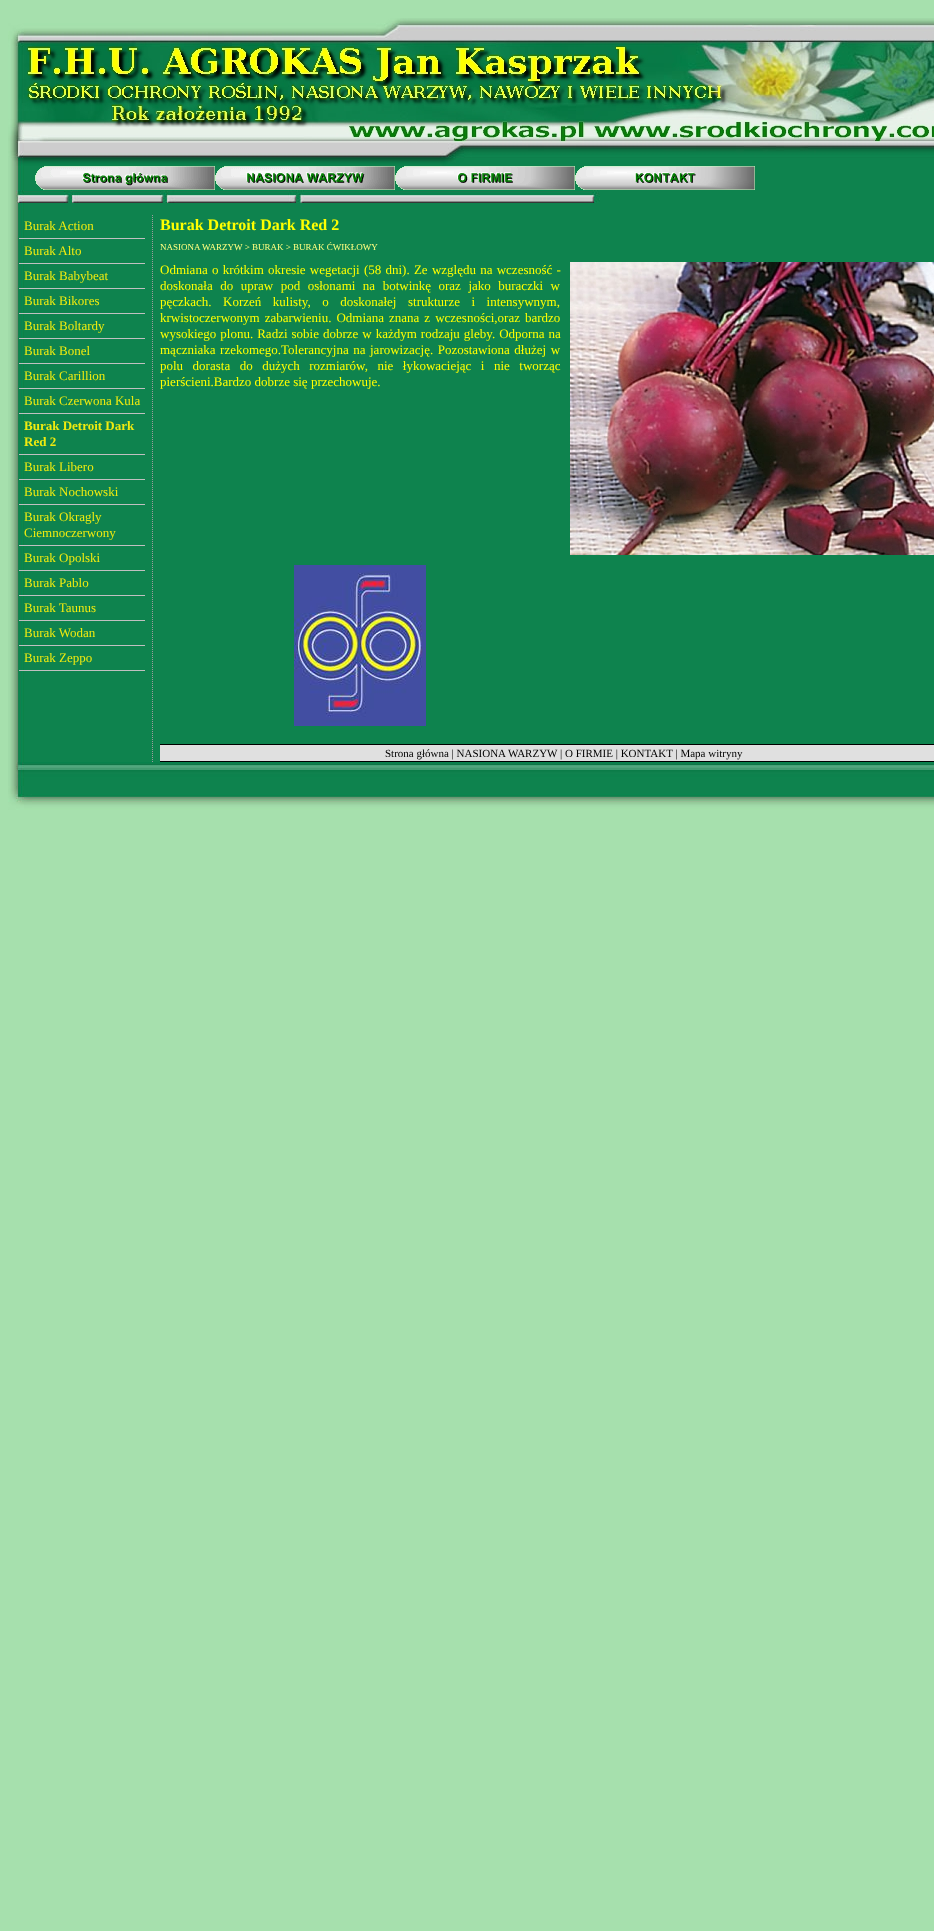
<!DOCTYPE html>
<meta charset="utf-8">
<style>body { margin: 0 } canvas { display: block }</style>
<canvas id="canvas" width="934" height="1931"></canvas>
<script type="module">
  const canvas = document.getElementById("canvas");
  const g = canvas.getContext("2d");
  g.miterLimit = 4;
  g.fontKerning = "normal";
  function drawText(s, x, y, [font, color]) {
    g.font = font;
    g.fillStyle = color;
    g.fillText(s, x, y);
  }
  function fillBox(x, y, w, h, color) {
    g.fillStyle = color;
    g.fillRect(x, y, w, h);
  }
  async function drawPicture(src, x, y, w, h) {
    const img = new Image();
    img.src = src;
    await img.decode();
    g.drawImage(img, x, y, w, h);
  }

  const s1 = ["13px Liberation Serif", "#F0EB0F"];
  const s2 = ["bold 13px Liberation Serif", "#F0EB0F"];
  const s3 = ["bold 16px Liberation Serif", "#FFFF00"];
  const s4 = ["9px Liberation Serif", "#FFFF80"];
  const s5 = ["13px Liberation Serif", "#FFFF00"];
  const s6 = ["11px Liberation Serif", "#000000"];

  fillBox(0, 0, 934, 1931, "#A6E0AD");
  await drawPicture("pic1.png", 8, 18, 926, 140);
  await drawPicture("pic2.png", 8, 158, 926, 604);
  await drawPicture("pic3.png", 12, 158, 588, 45);
  await drawPicture("pic4.png", 35, 166, 180, 24);
  await drawPicture("pic5.png", 215, 166, 180, 24);
  await drawPicture("pic6.png", 395, 166, 180, 24);
  await drawPicture("pic7.png", 575, 166, 180, 24);
  fillBox(19, 238, 126, 1, "#C0C0C0");
  drawText("Burak Action", 24, 230, s1);
  fillBox(19, 263, 126, 1, "#C0C0C0");
  drawText("Burak Alto", 24, 255, s1);
  fillBox(19, 288, 126, 1, "#C0C0C0");
  drawText("Burak Babybeat", 24, 280, s1);
  fillBox(19, 313, 126, 1, "#C0C0C0");
  drawText("Burak Bikores", 24, 305, s1);
  fillBox(19, 338, 126, 1, "#C0C0C0");
  drawText("Burak Boltardy", 24, 330, s1);
  fillBox(19, 363, 126, 1, "#C0C0C0");
  drawText("Burak Bonel", 24, 355, s1);
  fillBox(19, 388, 126, 1, "#C0C0C0");
  drawText("Burak Carillion", 24, 380, s1);
  fillBox(19, 413, 126, 1, "#C0C0C0");
  drawText("Burak Czerwona Kula", 24, 405, s1);
  fillBox(19, 454, 126, 1, "#C0C0C0");
  drawText("Burak Detroit Dark", 24, 430, s2);
  drawText("Red 2", 24, 446, s2);
  fillBox(19, 479, 126, 1, "#C0C0C0");
  drawText("Burak Libero", 24, 471, s1);
  fillBox(19, 504, 126, 1, "#C0C0C0");
  drawText("Burak Nochowski", 24, 496, s1);
  fillBox(19, 545, 126, 1, "#C0C0C0");
  drawText("Burak Okragly", 24, 521, s1);
  drawText("Ciemnoczerwony", 24, 537, s1);
  fillBox(19, 570, 126, 1, "#C0C0C0");
  drawText("Burak Opolski", 24, 562, s1);
  fillBox(19, 595, 126, 1, "#C0C0C0");
  drawText("Burak Pablo", 24, 587, s1);
  fillBox(19, 620, 126, 1, "#C0C0C0");
  drawText("Burak Taunus", 24, 612, s1);
  fillBox(19, 645, 126, 1, "#C0C0C0");
  drawText("Burak Wodan", 24, 637, s1);
  fillBox(19, 670, 126, 1, "#C0C0C0");
  drawText("Burak Zeppo", 24, 662, s1);
  await drawPicture("pic8.png", 152, 215, 1, 547);
  drawText("Burak Detroit Dark Red 2", 160, 230, s3);
  drawText("NASIONA WARZYW > BURAK > BURAK ĆWIKŁOWY", 160, 250, s4);
  g.wordSpacing = "1px";
  drawText("Odmiana o krótkim okresie wegetacji (58 dni). Ze względu na wczesność -", 160, 274, s5);
  g.wordSpacing = "4.25px";
  drawText("doskonała do upraw pod osłonami na botwinkę oraz jako buraczki w", 160, 290, s5);
  g.wordSpacing = "8.25px";
  drawText("pęczkach. Korzeń kulisty, o doskonałej strukturze i intensywnym,", 160, 306, s5);
  g.wordSpacing = "1.75px";
  drawText("krwistoczerwonym zabarwieniu. Odmiana znana z wczesności,oraz bardzo", 160, 322, s5);
  g.wordSpacing = "0.75px";
  drawText("wysokiego plonu. Radzi sobie dobrze w każdym rodzaju gleby. Odporna na", 160, 338, s5);
  g.wordSpacing = "1.25px";
  drawText("mączniaka rzekomego.Tolerancyjna na jarowizację. Pozostawiona dłużej w", 160, 354, s5);
  g.wordSpacing = "6.25px";
  drawText("polu dorasta do dużych rozmiarów, nie łykowaciejąc i nie tworząc", 160, 370, s5);
  g.wordSpacing = "0px";
  drawText("pierścieni.Bardzo dobrze się przechowuje.", 160, 386, s5);
  await drawPicture("pic9.png", 570, 262, 364, 293);
  await drawPicture("pic10.png", 294, 565, 132, 161);
  fillBox(160, 745, 774, 16, "#E0E0E0");
  fillBox(160, 744, 774, 1, "#000000");
  fillBox(160, 761, 774, 1, "#000000");
  drawText("Strona główna | NASIONA WARZYW | O FIRMIE | KONTAKT | Mapa witryny", 385, 757, s6);
  await drawPicture("pic11.png", 8, 762, 926, 48);
</script>
